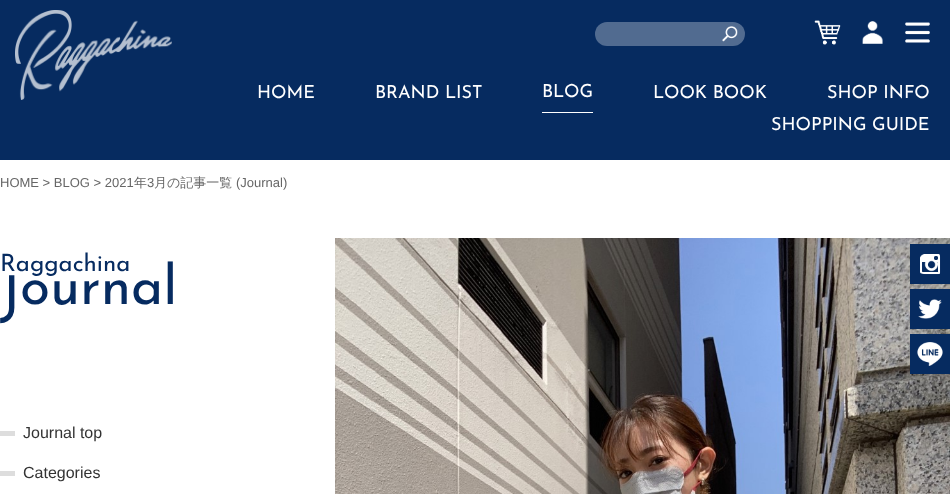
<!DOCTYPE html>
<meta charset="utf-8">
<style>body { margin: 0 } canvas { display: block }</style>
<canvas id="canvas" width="950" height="494"></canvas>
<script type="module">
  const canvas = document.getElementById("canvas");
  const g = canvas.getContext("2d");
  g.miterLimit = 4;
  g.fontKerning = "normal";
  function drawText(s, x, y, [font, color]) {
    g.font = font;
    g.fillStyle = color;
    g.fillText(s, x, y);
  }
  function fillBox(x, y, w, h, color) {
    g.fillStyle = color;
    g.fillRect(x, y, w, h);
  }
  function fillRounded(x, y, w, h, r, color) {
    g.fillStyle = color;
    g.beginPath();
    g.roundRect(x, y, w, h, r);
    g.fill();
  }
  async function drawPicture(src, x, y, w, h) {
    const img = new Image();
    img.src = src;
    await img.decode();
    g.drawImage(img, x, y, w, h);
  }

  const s1 = ["18px Josefin Sans", "#FFFFFF"];
  const s2 = ["13px Liberation Sans", "#666666"];
  const s3 = ["500 13px WenQuanYi Zen Hei", "#666666"];
  const s4 = ["24px Josefin Sans", "#062B60"];
  const s5 = ["55px Josefin Sans", "#062B60"];
  const s6 = ["16px Liberation Sans", "#333333"];

  fillBox(0, 0, 950, 494, "#FFFFFF");
  fillBox(0, 0, 950, 160, "#062B60");
  await drawPicture("pic1.png", 15, 10, 157, 90);
  fillRounded(595, 22, 150, 24, 12, "#516B90");
  await drawPicture("pic2.png", 722, 26, 16, 16);
  await drawPicture("pic3.png", 814, 20, 27, 25);
  await drawPicture("pic4.png", 862, 21, 21, 23);
  await drawPicture("pic5.png", 905, 22, 25, 21);
  drawText("HOME", 257, 98, s1);
  drawText("BRAND LIST", 375, 98, s1);
  fillBox(542, 112, 51, 1, "#FFFFFF");
  drawText("BLOG", 542, 97, s1);
  drawText("LOOK BOOK", 653, 98, s1);
  drawText("SHOP INFO", 827, 98, s1);
  drawText("SHOPPING GUIDE", 771, 130, s1);
  drawText("HOME > BLOG > 2021", 0, 187, s2);
  drawText("年", 134, 187, s3);
  drawText("3", 147, 187, s2);
  drawText("月の記事一覧", 154, 187, s3);
  drawText("(Journal)", 236, 187, s2);
  drawText("Raggachina", 0, 271, s4);
  drawText("J", 0, 315, s5);
  drawText("ournal", 20, 304, s5);
  fillBox(0, 431, 15, 5, "#DDDDDD");
  drawText("Journal top", 23, 438, s6);
  fillBox(0, 471, 15, 5, "#DDDDDD");
  drawText("Categories", 23, 478, s6);
  await drawPicture("pic6.png", 335, 238, 615, 256);
  await drawPicture("pic7.png", 910, 244, 40, 40);
  await drawPicture("pic8.png", 910, 289, 40, 40);
  await drawPicture("pic9.png", 910, 334, 40, 40);
</script>
